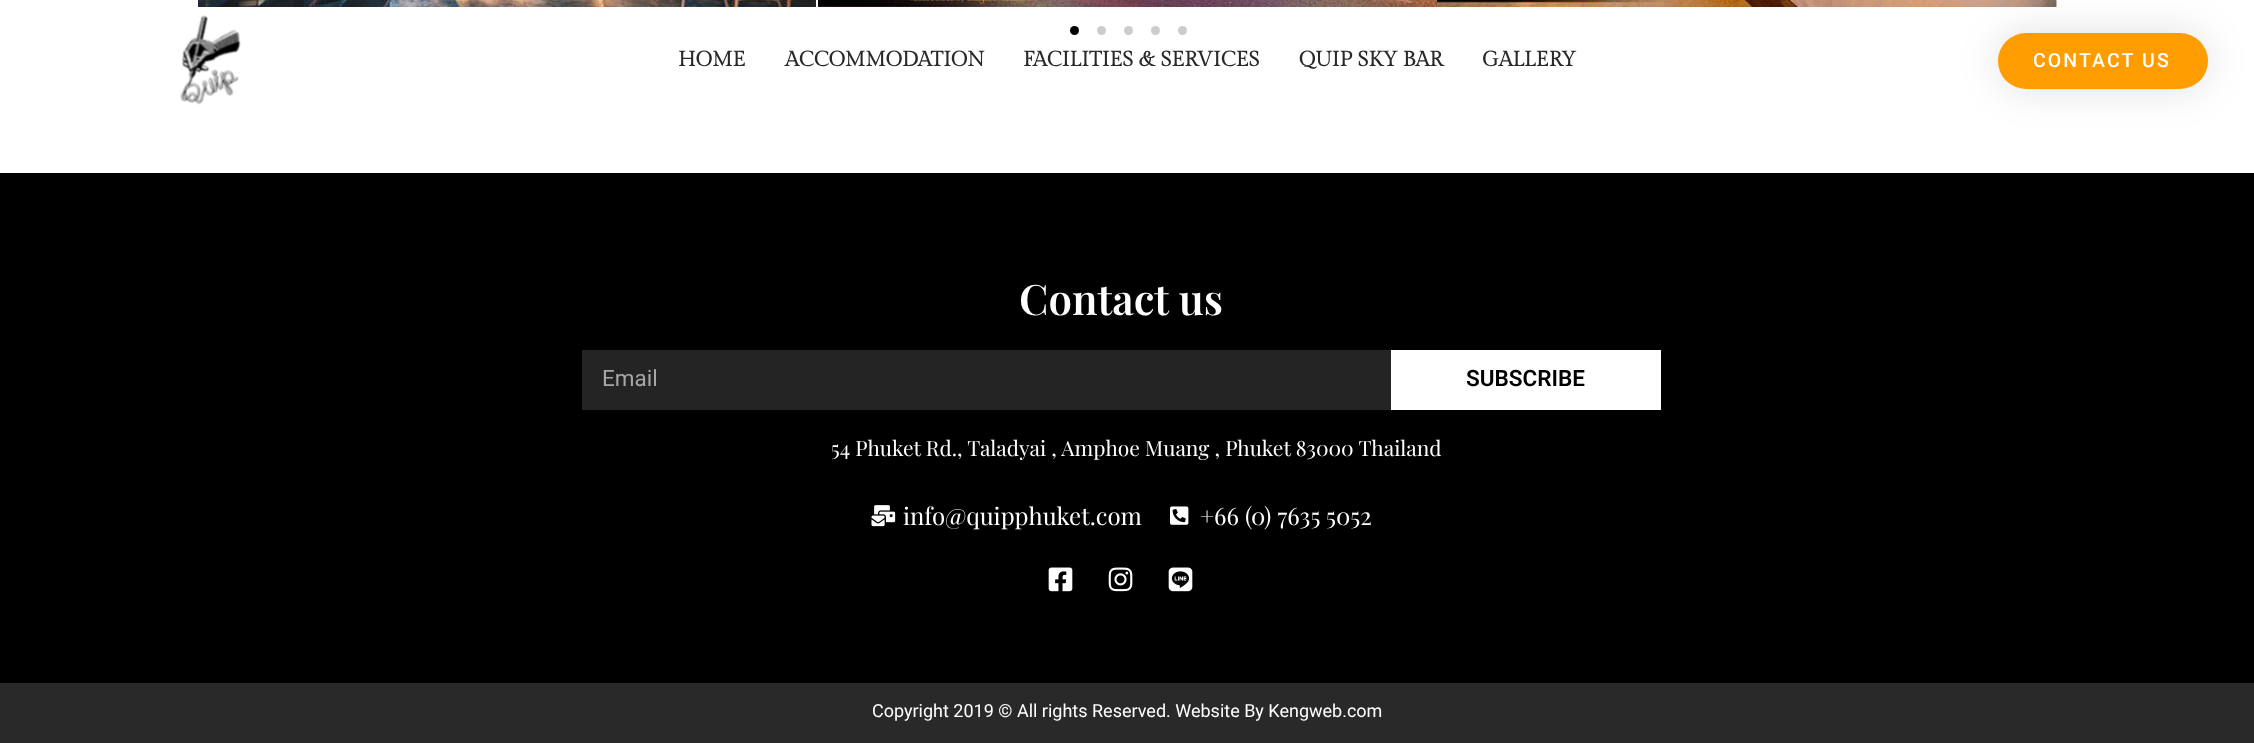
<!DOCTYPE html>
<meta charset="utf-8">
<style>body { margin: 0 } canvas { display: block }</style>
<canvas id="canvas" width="2254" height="743"></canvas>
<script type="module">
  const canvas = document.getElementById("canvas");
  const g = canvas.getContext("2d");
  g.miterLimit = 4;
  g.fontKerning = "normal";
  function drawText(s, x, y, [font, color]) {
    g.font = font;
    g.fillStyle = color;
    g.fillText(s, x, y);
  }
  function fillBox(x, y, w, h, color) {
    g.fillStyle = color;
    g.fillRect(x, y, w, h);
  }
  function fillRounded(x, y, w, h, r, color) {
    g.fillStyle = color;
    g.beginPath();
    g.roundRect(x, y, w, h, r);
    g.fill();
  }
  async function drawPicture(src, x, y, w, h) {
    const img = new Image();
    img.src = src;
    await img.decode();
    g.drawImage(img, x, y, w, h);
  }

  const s1 = ["bold 21px Gilda Display", "#292929"];
  const s2 = ["500 19.5px Roboto", "#FFFFFF"];
  const s3 = ["600 42px Playfair Display", "#FFFFFF"];
  const s4 = ["22.5px Roboto", "#A7A7A7"];
  const s5 = ["600 22.5px Roboto", "#000000"];
  const s6 = ["21px Playfair Display", "#FFFFFF"];
  const s7 = ["24px Playfair Display", "#FFFFFF"];
  const s8 = ["18px Roboto", "#FFFFFF"];

  fillBox(0, 0, 2254, 743, "#FFFFFF");
  await drawPicture("pic1.png", 198, 0, 618, 7);
  await drawPicture("pic2.png", 818, 0, 619, 7);
  g.fillStyle = "rgba(0, 0, 0, 0.12)";
  g.filter = "blur(20px)";
  g.beginPath();
  g.roundRect(1998, 33, 210, 56, 28);
  g.fill();
  g.filter = "none";
  await drawPicture("pic3.png", 1437, 0, 620, 7);
  g.fillStyle = "#000000";
  g.beginPath();
  g.arc(1074.5, 30.5, 4.5, 0, Math.PI * 2);
  g.fill();
  g.fillStyle = "#CCCCCC";
  g.beginPath();
  g.arc(1101.5, 30.5, 4.5, 0, Math.PI * 2);
  g.fill();
  g.beginPath();
  g.arc(1128.5, 30.5, 4.5, 0, Math.PI * 2);
  g.fill();
  g.beginPath();
  g.arc(1155.5, 30.5, 4.5, 0, Math.PI * 2);
  g.fill();
  g.beginPath();
  g.arc(1182.5, 30.5, 4.5, 0, Math.PI * 2);
  g.fill();
  await drawPicture("pic4.png", 180, 15, 61, 90);
  drawText("HOME", 678, 66, s1);
  drawText("ACCOMMODATION", 785, 66, s1);
  drawText("FACILITIES & SERVICES", 1023, 66, s1);
  drawText("QUIP SKY BAR", 1299, 66, s1);
  drawText("GALLERY", 1482, 66, s1);
  fillRounded(1998, 33, 210, 56, 28, "#FF9C00");
  g.letterSpacing = "2.1px";
  drawText("CONTACT US", 2033, 67, s2);
  fillBox(0, 173, 2254, 510, "#000000");
  g.letterSpacing = "0px";
  drawText("Contact us", 1019, 315, s3);
  fillBox(582, 350, 809, 60, "#242424");
  drawText("Email", 602, 386, s4);
  fillBox(1391, 350, 270, 60, "#FFFFFF");
  drawText("SUBSCRIBE", 1466, 386, s5);
  drawText("54 Phuket Rd., Taladyai , Amphoe Muang , Phuket 83000 Thailand", 831, 456, s6);
  await drawPicture("pic5.png", 871, 505, 25, 22);
  drawText("info@quipphuket.com", 903, 525, s7);
  await drawPicture("pic6.png", 1170, 506, 19, 19);
  drawText("+66 (0) 7635 5052", 1200, 525, s7);
  await drawPicture("pic7.png", 1048, 567, 25, 25);
  await drawPicture("pic8.png", 1108, 567, 25, 25);
  await drawPicture("pic9.png", 1168, 567, 25, 25);
  fillBox(0, 683, 2254, 60, "#292929");
  drawText("Copyright 2019 © All rights Reserved. Website By Kengweb.com", 872, 717, s8);
</script>
